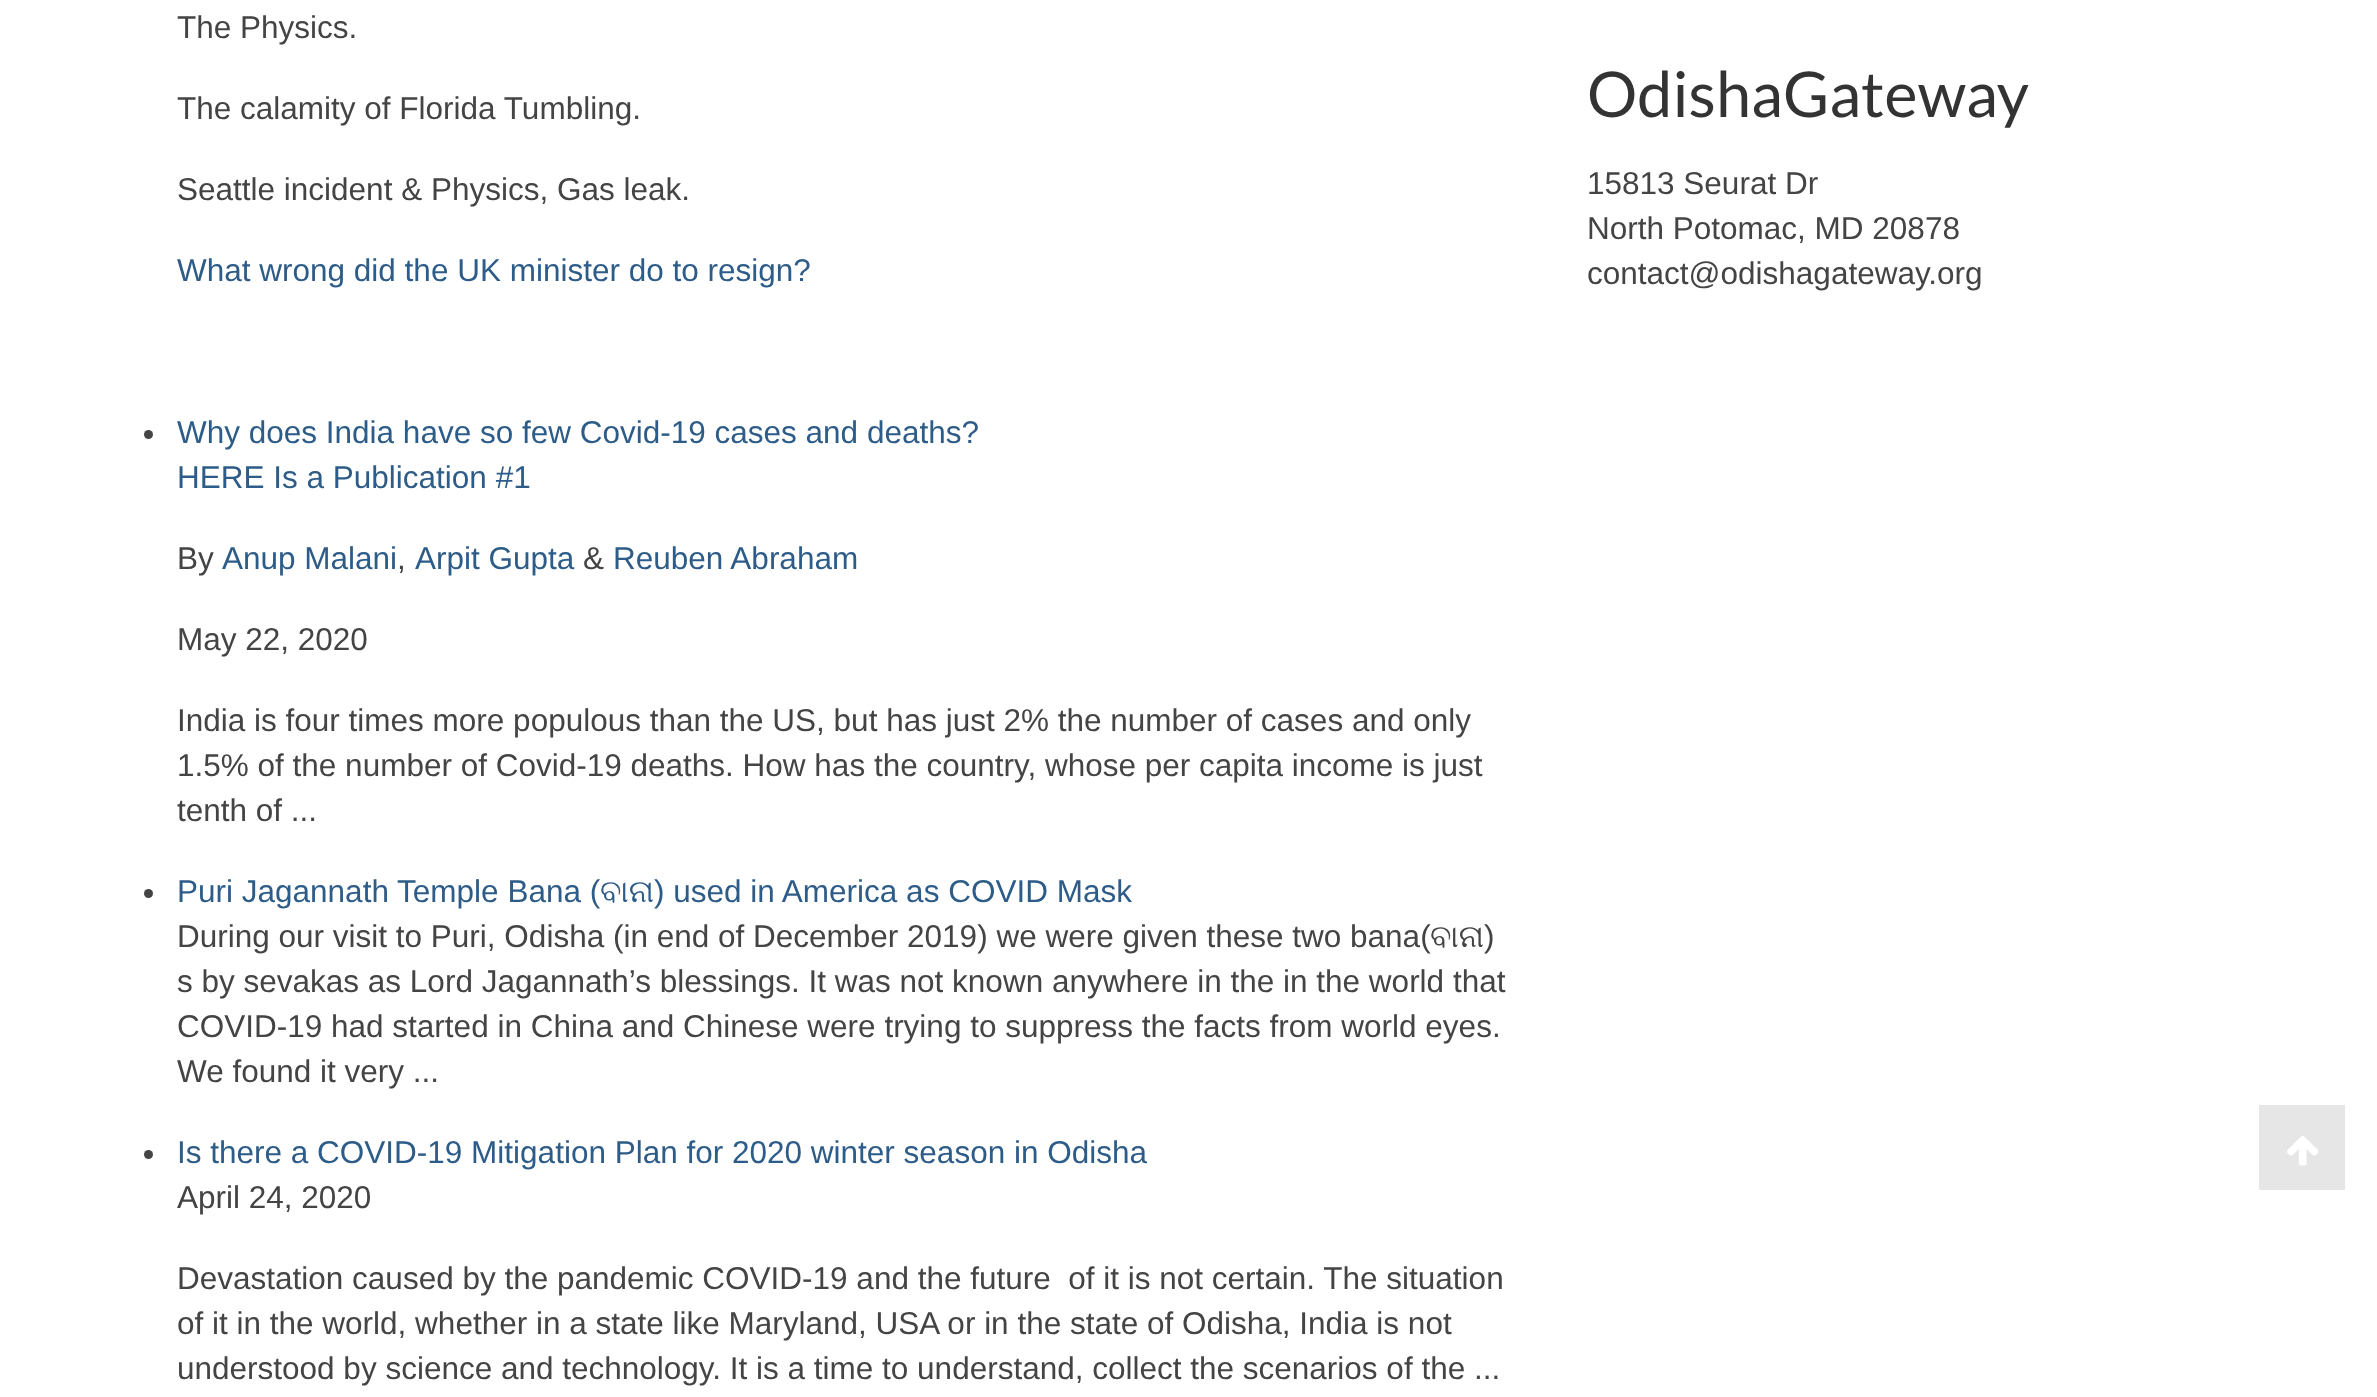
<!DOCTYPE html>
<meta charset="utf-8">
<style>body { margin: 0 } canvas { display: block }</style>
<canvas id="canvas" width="2377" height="1397"></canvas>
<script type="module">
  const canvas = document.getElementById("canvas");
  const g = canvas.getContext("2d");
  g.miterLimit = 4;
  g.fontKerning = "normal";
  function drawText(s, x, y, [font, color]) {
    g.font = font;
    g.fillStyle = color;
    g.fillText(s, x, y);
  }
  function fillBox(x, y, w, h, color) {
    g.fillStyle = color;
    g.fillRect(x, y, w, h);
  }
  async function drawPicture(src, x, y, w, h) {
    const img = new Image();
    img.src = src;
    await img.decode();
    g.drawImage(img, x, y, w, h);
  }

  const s1 = ["31.5px Liberation Sans", "#444444"];
  const s2 = ["31.5px Liberation Sans", "#2D5C88"];
  const s3 = ["31.5px FreeSerif", "#2D5C88"];
  const s4 = ["31.5px FreeSerif", "#444444"];
  const s5 = ["63px Lato", "#333333"];

  fillBox(0, 0, 2377, 1397, "#FFFFFF");
  drawText("The Physics.", 177, 38, s1);
  drawText("The calamity of Florida Tumbling.", 177, 119, s1);
  drawText("Seattle incident & Physics, Gas leak.", 177, 200, s1);
  drawText("What wrong did the UK minister do to resign?", 177, 281, s2);
  g.fillStyle = "#444444";
  g.beginPath();
  g.arc(148.5, 434.5, 4.5, 0, Math.PI * 2);
  g.fill();
  drawText("Why does India have so few Covid-19 cases and deaths?", 177, 443, s2);
  drawText("HERE Is a Publication #1", 177, 488, s2);
  drawText("By", 177, 569, s1);
  drawText("Anup Malani", 222, 569, s2);
  drawText(",", 397, 569, s1);
  drawText("Arpit Gupta", 415, 569, s2);
  drawText("&", 583, 569, s1);
  drawText("Reuben Abraham", 613, 569, s2);
  drawText("May 22, 2020", 177, 650, s1);
  drawText("India is four times more populous than the US, but has just 2% the number of cases and only", 177, 731, s1);
  drawText("1.5% of the number of Covid-19 deaths. How has the country, whose per capita income is just", 177, 776, s1);
  drawText("tenth of ...", 177, 821, s1);
  g.beginPath();
  g.arc(148.5, 893.5, 4.5, 0, Math.PI * 2);
  g.fill();
  drawText("Puri Jagannath Temple Bana (", 177, 902, s2);
  drawText("ବାନା", 600, 902, s3);
  drawText(") used in America as COVID Mask", 654, 902, s2);
  drawText("During our visit to Puri, Odisha (in end of December 2019) we were given these two bana(", 177, 947, s1);
  drawText("ବାନା", 1430, 947, s4);
  drawText(")", 1484, 947, s1);
  drawText("s by sevakas as Lord Jagannath’s blessings. It was not known anywhere in the in the world that", 177, 992, s1);
  drawText("COVID-19 had started in China and Chinese were trying to suppress the facts from world eyes.", 177, 1037, s1);
  drawText("We found it very ...", 177, 1082, s1);
  g.beginPath();
  g.arc(148.5, 1154.5, 4.5, 0, Math.PI * 2);
  g.fill();
  drawText("Is there a COVID-19 Mitigation Plan for 2020 winter season in Odisha", 177, 1163, s2);
  drawText("April 24, 2020", 177, 1208, s1);
  drawText("Devastation caused by the pandemic COVID-19 and the future  of it is not certain. The situation", 177, 1289, s1);
  drawText("of it in the world, whether in a state like Maryland, USA or in the state of Odisha, India is not", 177, 1334, s1);
  drawText("understood by science and technology. It is a time to understand, collect the scenarios of the ...", 177, 1379, s1);
  drawText("OdishaGateway", 1587, 117, s5);
  drawText("15813 Seurat Dr", 1587, 194, s1);
  drawText("North Potomac, MD 20878", 1587, 239, s1);
  drawText("contact@odishagateway.org", 1587, 284, s1);
  fillBox(2259, 1105, 86, 85, "#E6E6E6");
  await drawPicture("pic1.png", 2287, 1136, 32, 30);
</script>
